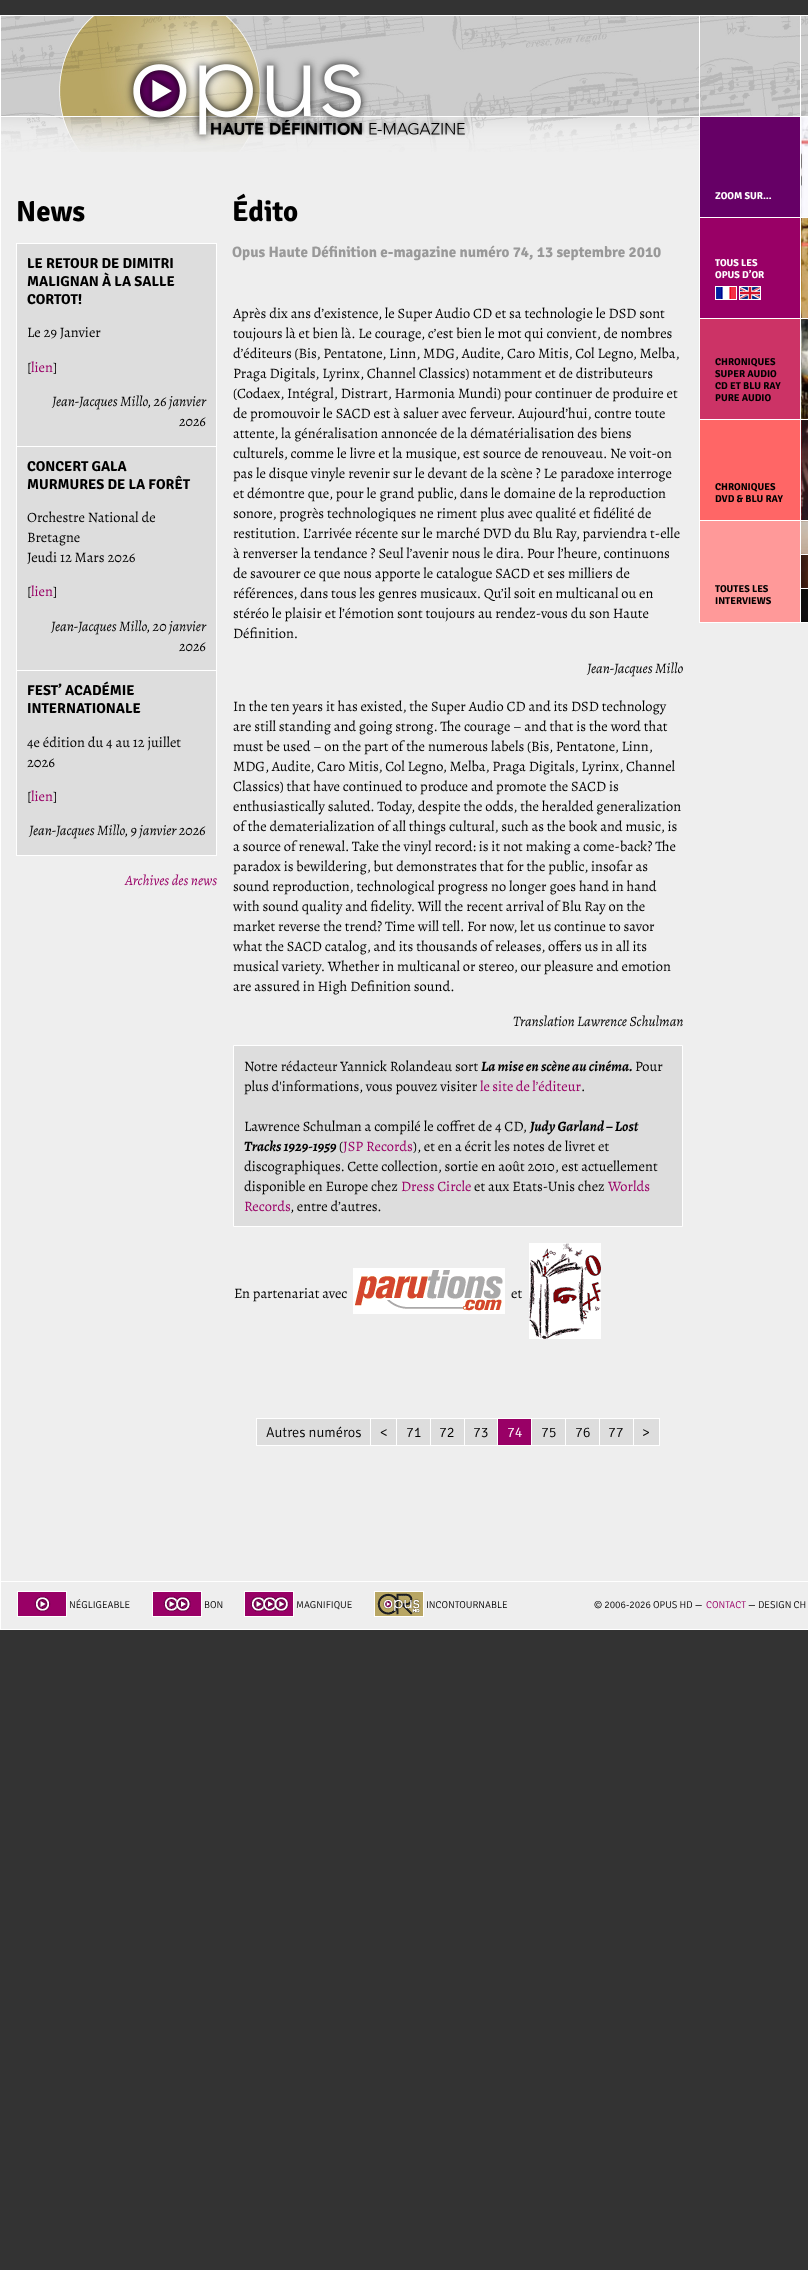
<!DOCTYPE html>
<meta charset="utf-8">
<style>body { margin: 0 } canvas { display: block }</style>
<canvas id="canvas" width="808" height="2270"></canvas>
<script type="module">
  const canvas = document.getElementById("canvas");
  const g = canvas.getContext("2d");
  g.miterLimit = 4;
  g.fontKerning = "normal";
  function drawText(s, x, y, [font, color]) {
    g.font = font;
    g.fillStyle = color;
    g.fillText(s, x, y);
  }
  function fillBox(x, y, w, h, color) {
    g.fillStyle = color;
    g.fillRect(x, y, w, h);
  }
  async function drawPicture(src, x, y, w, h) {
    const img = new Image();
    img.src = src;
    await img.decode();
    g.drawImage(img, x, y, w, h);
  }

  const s1 = ["bold 29px Signika", "#000000"];
  const s2 = ["bold 14.4px Signika", "#000000"];
  const s3 = ["14.4px Alegreya", "#000000"];
  const s4 = ["14.4px Alegreya", "#990066"];
  const s5 = ["italic 14.4px Alegreya", "#000000"];
  const s6 = ["italic 14.4px Alegreya", "#990066"];
  const s7 = ["bold 15.1px Signika", "#999999"];
  const s8 = ["italic bold 14.4px Alegreya", "#000000"];
  const s9 = ["300 14.4px Signika", "#000000"];
  const s10 = ["300 14.4px Signika", "#FFFFFF"];
  const s11 = ["bold 10px Signika", "#FFFFFF"];
  const s12 = ["bold 10px Signika", "#000000"];
  const s13 = ["300 10px Signika", "#000000"];
  const s14 = ["300 10px Signika", "#990066"];

  fillBox(0, 0, 808, 2270, "#333333");
  fillBox(1, 152, 807, 1477, "#EEEEEE");
  await drawPicture("pic1.png", 1, 16, 807, 136);
  g.strokeStyle = "#FFFFFF";
  g.strokeRect(0.5, 15.5, 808, 1614);
  drawText("News", 16, 221, s1);
  fillBox(17, 244, 199, 202, "#DDDDDD");
  fillBox(16, 243, 201, 1, "#FFFFFF");
  fillBox(16, 446, 201, 1, "#FFFFFF");
  fillBox(16, 670, 201, 1, "#FFFFFF");
  fillBox(216, 670, 1, 186, "#FFFFFF");
  fillBox(216, 446, 1, 225, "#FFFFFF");
  fillBox(216, 243, 1, 204, "#FFFFFF");
  fillBox(16, 855, 201, 1, "#FFFFFF");
  fillBox(16, 670, 1, 186, "#FFFFFF");
  fillBox(16, 446, 1, 225, "#FFFFFF");
  fillBox(16, 243, 1, 204, "#FFFFFF");
  drawText("LE RETOUR DE DIMITRI", 27, 268, s2);
  drawText("MALIGNAN À LA SALLE", 27, 286, s2);
  drawText("CORTOT!", 27, 304, s2);
  drawText("Le 29 Janvier", 27, 337, s3);
  drawText("[", 27, 372, s3);
  drawText("lien", 31, 372, s4);
  drawText("]", 53, 372, s3);
  drawText("Jean-Jacques Millo, 26 janvier", 52, 406, s5);
  drawText("2026", 179, 426, s5);
  fillBox(17, 447, 199, 223, "#DDDDDD");
  drawText("CONCERT GALA", 27, 471, s2);
  drawText("MURMURES DE LA FORÊT", 27, 489, s2);
  drawText("Orchestre National de", 27, 522, s3);
  drawText("Bretagne", 27, 542, s3);
  drawText("Jeudi 12 Mars 2026", 27, 562, s3);
  drawText("[", 27, 596, s3);
  drawText("lien", 31, 596, s4);
  drawText("]", 53, 596, s3);
  drawText("Jean-Jacques Millo, 20 janvier", 51, 631, s5);
  drawText("2026", 179, 651, s5);
  fillBox(17, 671, 199, 184, "#DDDDDD");
  drawText("FEST’ ACADÉMIE", 27, 695, s2);
  drawText("INTERNATIONALE", 27, 713, s2);
  drawText("4e édition du 4 au 12 juillet", 27, 747, s3);
  drawText("2026", 27, 767, s3);
  drawText("[", 27, 801, s3);
  drawText("lien", 31, 801, s4);
  drawText("]", 53, 801, s3);
  drawText("Jean-Jacques Millo, 9 janvier 2026", 29, 835, s5);
  drawText("Archives des news", 125, 885, s6);
  drawText("Édito", 232, 221, s1);
  drawText("Opus Haute Définition e-magazine numéro 74, 13 septembre 2010", 232, 257, s7);
  drawText("Après dix ans d’existence, le Super Audio CD et sa technologie le DSD sont", 233, 318, s3);
  drawText("toujours là et bien là. Le courage, c’est bien le mot qui convient, de nombres", 233, 338, s3);
  drawText("d’éditeurs (Bis, Pentatone, Linn, MDG, Audite, Caro Mitis, Col Legno, Melba,", 233, 358, s3);
  drawText("Praga Digitals, Lyrinx, Channel Classics) notamment et de distributeurs", 233, 378, s3);
  drawText("(Codaex, Intégral, Distrart, Harmonia Mundi) pour continuer de produire et", 233, 398, s3);
  drawText("de promouvoir le SACD est à saluer avec ferveur. Aujourd’hui, contre toute", 233, 418, s3);
  drawText("attente, la généralisation annoncée de la dématérialisation des biens", 233, 438, s3);
  drawText("culturels, comme le livre et la musique, est source de renouveau. Ne voit-on", 233, 458, s3);
  drawText("pas le disque vinyle revenir sur le devant de la scène ? Le paradoxe interroge", 233, 478, s3);
  drawText("et démontre que, pour le grand public, dans le domaine de la reproduction", 233, 498, s3);
  drawText("sonore, progrès technologiques ne riment plus avec qualité et fidélité de", 233, 518, s3);
  drawText("restitution. L’arrivée récente sur le marché DVD du Blu Ray, parviendra t-elle", 233, 538, s3);
  drawText("à renverser la tendance ? Seul l’avenir nous le dira. Pour l’heure, continuons", 233, 558, s3);
  drawText("de savourer ce que nous apporte le catalogue SACD et ses milliers de", 233, 578, s3);
  drawText("références, dans tous les genres musicaux. Qu’il soit en multicanal ou en", 233, 598, s3);
  drawText("stéréo le plaisir et l’émotion sont toujours au rendez-vous du son Haute", 233, 618, s3);
  drawText("Définition.", 233, 638, s3);
  drawText("Jean-Jacques Millo", 587, 673, s5);
  drawText("In the ten years it has existed, the Super Audio CD and its DSD technology", 233, 711, s3);
  drawText("are still standing and going strong. The courage – and that is the word that", 233, 731, s3);
  drawText("must be used – on the part of the numerous labels (Bis, Pentatone, Linn,", 233, 751, s3);
  drawText("MDG, Audite, Caro Mitis, Col Legno, Melba, Praga Digitals, Lyrinx, Channel", 233, 771, s3);
  drawText("Classics) that have continued to produce and promote the SACD is", 233, 791, s3);
  drawText("enthusiastically saluted. Today, despite the odds, the heralded generalization", 233, 811, s3);
  drawText("of the dematerialization of all things cultural, such as the book and music, is", 233, 831, s3);
  drawText("a source of renewal. Take the vinyl record: is it not making a come-back? The", 233, 851, s3);
  drawText("paradox is bewildering, but demonstrates that for the public, insofar as", 233, 871, s3);
  drawText("sound reproduction, technological progress no longer goes hand in hand", 233, 891, s3);
  drawText("with sound quality and fidelity. Will the recent arrival of Blu Ray on the", 233, 911, s3);
  drawText("market reverse the trend? Time will tell. For now, let us continue to savor", 233, 931, s3);
  drawText("what the SACD catalog, and its thousands of releases, offers us in all its", 233, 951, s3);
  drawText("musical variety. Whether in multicanal or stereo, our pleasure and emotion", 233, 971, s3);
  drawText("are assured in High Definition sound.", 233, 991, s3);
  drawText("Translation Lawrence Schulman", 513, 1026, s5);
  g.fillStyle = "#DDDDDD";
  g.beginPath();
  g.rect(233.5, 1045.5, 449, 181);
  g.fill();
  g.stroke();
  drawText("Notre rédacteur Yannick Rolandeau sort", 244, 1071, s3);
  drawText("La mise en scène au cinéma.", 481, 1071, s8);
  drawText("Pour", 635, 1071, s3);
  drawText("plus d'informations, vous pouvez visiter", 244, 1091, s3);
  g.wordSpacing = "-0.5px";
  drawText("le site de l’éditeur", 480, 1091, s4);
  g.wordSpacing = "0px";
  drawText(".", 581, 1091, s3);
  drawText("Lawrence Schulman a compilé le coffret de 4 CD,", 244, 1131, s3);
  drawText("Judy Garland – Lost", 530, 1131, s8);
  drawText("Tracks 1929-1959", 244, 1151, s8);
  drawText("(", 339, 1151, s3);
  drawText("JSP Records", 343, 1151, s4);
  drawText("), et en a écrit les notes de livret et", 413, 1151, s3);
  drawText("discographiques. Cette collection, sortie en août 2010, est actuellement", 244, 1171, s3);
  drawText("disponible en Europe chez", 244, 1191, s3);
  drawText("Dress Circle", 401, 1191, s4);
  drawText("et aux Etats-Unis chez", 474, 1191, s3);
  drawText("Worlds", 608, 1191, s4);
  drawText("Records", 244, 1211, s4);
  drawText(", entre d’autres.", 290, 1211, s3);
  drawText("En partenariat avec", 234, 1298, s3);
  await drawPicture("pic2.png", 353, 1268, 152, 46);
  drawText("et", 511, 1298, s3);
  await drawPicture("pic3.png", 529, 1243, 72, 96);
  fillBox(257, 1419, 113, 26, "#DDDDDD");
  fillBox(633, 1418, 27, 1, "#FFFFFF");
  fillBox(659, 1418, 1, 28, "#FFFFFF");
  fillBox(633, 1445, 27, 1, "#FFFFFF");
  fillBox(633, 1418, 1, 28, "#FFFFFF");
  fillBox(599, 1418, 35, 1, "#FFFFFF");
  fillBox(599, 1445, 35, 1, "#FFFFFF");
  fillBox(599, 1418, 1, 28, "#FFFFFF");
  fillBox(565, 1418, 35, 1, "#FFFFFF");
  fillBox(565, 1445, 35, 1, "#FFFFFF");
  fillBox(565, 1418, 1, 28, "#FFFFFF");
  fillBox(531, 1418, 35, 1, "#FFFFFF");
  fillBox(531, 1445, 35, 1, "#FFFFFF");
  fillBox(531, 1418, 1, 28, "#FFFFFF");
  fillBox(497, 1418, 35, 1, "#FFFFFF");
  fillBox(497, 1445, 35, 1, "#FFFFFF");
  fillBox(497, 1418, 1, 28, "#FFFFFF");
  fillBox(464, 1418, 34, 1, "#FFFFFF");
  fillBox(464, 1445, 34, 1, "#FFFFFF");
  fillBox(464, 1418, 1, 28, "#FFFFFF");
  fillBox(430, 1418, 35, 1, "#FFFFFF");
  fillBox(430, 1445, 35, 1, "#FFFFFF");
  fillBox(430, 1418, 1, 28, "#FFFFFF");
  fillBox(396, 1418, 35, 1, "#FFFFFF");
  fillBox(396, 1445, 35, 1, "#FFFFFF");
  fillBox(396, 1418, 1, 28, "#FFFFFF");
  fillBox(370, 1418, 27, 1, "#FFFFFF");
  fillBox(370, 1445, 27, 1, "#FFFFFF");
  fillBox(370, 1418, 1, 28, "#FFFFFF");
  fillBox(256, 1418, 115, 1, "#FFFFFF");
  fillBox(256, 1445, 115, 1, "#FFFFFF");
  fillBox(256, 1418, 1, 28, "#FFFFFF");
  drawText("Autres numéros", 266, 1437, s9);
  fillBox(371, 1419, 25, 26, "#DDDDDD");
  drawText("<", 380, 1437, s9);
  fillBox(397, 1419, 33, 26, "#DDDDDD");
  drawText("71", 406, 1437, s9);
  fillBox(431, 1419, 33, 26, "#DDDDDD");
  drawText("72", 439, 1437, s9);
  fillBox(465, 1419, 32, 26, "#DDDDDD");
  drawText("73", 473, 1437, s9);
  fillBox(498, 1419, 33, 26, "#990066");
  drawText("74", 507, 1437, s10);
  fillBox(532, 1419, 33, 26, "#DDDDDD");
  drawText("75", 541, 1437, s9);
  fillBox(566, 1419, 33, 26, "#DDDDDD");
  drawText("76", 575, 1437, s9);
  fillBox(600, 1419, 33, 26, "#DDDDDD");
  drawText("77", 608, 1437, s9);
  fillBox(634, 1419, 25, 26, "#DDDDDD");
  drawText(">", 642, 1437, s9);
  fillBox(700, 117, 100, 100, "#660066");
  fillBox(800, 622, 8, 1, "#FFFFFF");
  fillBox(800, 588, 1, 35, "#FFFFFF");
  fillBox(800, 588, 8, 1, "#FFFFFF");
  fillBox(800, 554, 1, 35, "#FFFFFF");
  fillBox(800, 554, 8, 1, "#FFFFFF");
  fillBox(800, 520, 1, 35, "#FFFFFF");
  fillBox(800, 520, 8, 1, "#FFFFFF");
  fillBox(800, 419, 1, 102, "#FFFFFF");
  fillBox(800, 419, 8, 1, "#FFFFFF");
  fillBox(800, 318, 1, 102, "#FFFFFF");
  fillBox(800, 318, 8, 1, "#FFFFFF");
  fillBox(800, 217, 1, 102, "#FFFFFF");
  fillBox(800, 217, 8, 1, "#FFFFFF");
  fillBox(800, 16, 1, 202, "#FFFFFF");
  fillBox(699, 622, 102, 1, "#FFFFFF");
  fillBox(699, 520, 1, 103, "#FFFFFF");
  fillBox(699, 520, 102, 1, "#FFFFFF");
  fillBox(699, 419, 1, 102, "#FFFFFF");
  fillBox(699, 419, 102, 1, "#FFFFFF");
  fillBox(699, 318, 1, 102, "#FFFFFF");
  fillBox(699, 318, 102, 1, "#FFFFFF");
  fillBox(699, 217, 1, 102, "#FFFFFF");
  fillBox(699, 217, 102, 1, "#FFFFFF");
  fillBox(699, 16, 1, 202, "#FFFFFF");
  drawText("ZOOM SUR…", 715, 199, s11);
  await drawPicture("pic4.png", 801, 117, 7, 100);
  fillBox(700, 218, 100, 100, "#990066");
  drawText("TOUS LES", 715, 266, s11);
  drawText("OPUS D’OR", 715, 278, s11);
  g.strokeRect(715.5, 286.5, 21, 13);
  g.strokeRect(739.5, 286.5, 21, 13);
  await drawPicture("pic5.png", 716, 287, 20, 12);
  await drawPicture("pic6.png", 740, 287, 20, 12);
  await drawPicture("pic7.png", 801, 218, 7, 100);
  fillBox(700, 319, 100, 100, "#CC3366");
  drawText("CHRONIQUES", 715, 365, s12);
  drawText("SUPER AUDIO", 715, 377, s12);
  drawText("CD ET BLU RAY", 715, 389, s12);
  drawText("PURE AUDIO", 715, 401, s12);
  await drawPicture("pic8.png", 801, 319, 7, 100);
  fillBox(700, 420, 100, 100, "#FF6666");
  drawText("CHRONIQUES", 715, 490, s12);
  drawText("DVD & BLU RAY", 715, 502, s12);
  await drawPicture("pic9.png", 801, 420, 7, 100);
  await drawPicture("pic10.png", 801, 555, 7, 33);
  await drawPicture("pic11.png", 801, 521, 7, 33);
  fillBox(700, 521, 100, 101, "#FF9999");
  drawText("TOUTES LES", 715, 592, s12);
  drawText("INTERVIEWS", 715, 604, s12);
  await drawPicture("pic12.png", 801, 589, 7, 33);
  fillBox(1, 1581, 807, 1, "#FFFFFF");
  g.strokeRect(17.5, 1591.5, 49, 25);
  await drawPicture("pic13.png", 18, 1592, 48, 24);
  drawText("NÉGLIGEABLE", 69, 1608, s13);
  g.strokeRect(152.5, 1591.5, 49, 25);
  await drawPicture("pic14.png", 153, 1592, 48, 24);
  drawText("BON", 204, 1608, s13);
  g.strokeRect(244.5, 1591.5, 49, 25);
  await drawPicture("pic15.png", 245, 1592, 48, 24);
  drawText("MAGNIFIQUE", 296, 1608, s13);
  g.strokeRect(374.5, 1591.5, 49, 25);
  await drawPicture("pic16.png", 375, 1592, 48, 24);
  drawText("INCONTOURNABLE", 426, 1608, s13);
  drawText("© 2006-2026 OPUS HD —", 594, 1608, s13);
  drawText("CONTACT", 706, 1608, s14);
  drawText("— DESIGN CH", 748, 1608, s13);
</script>
